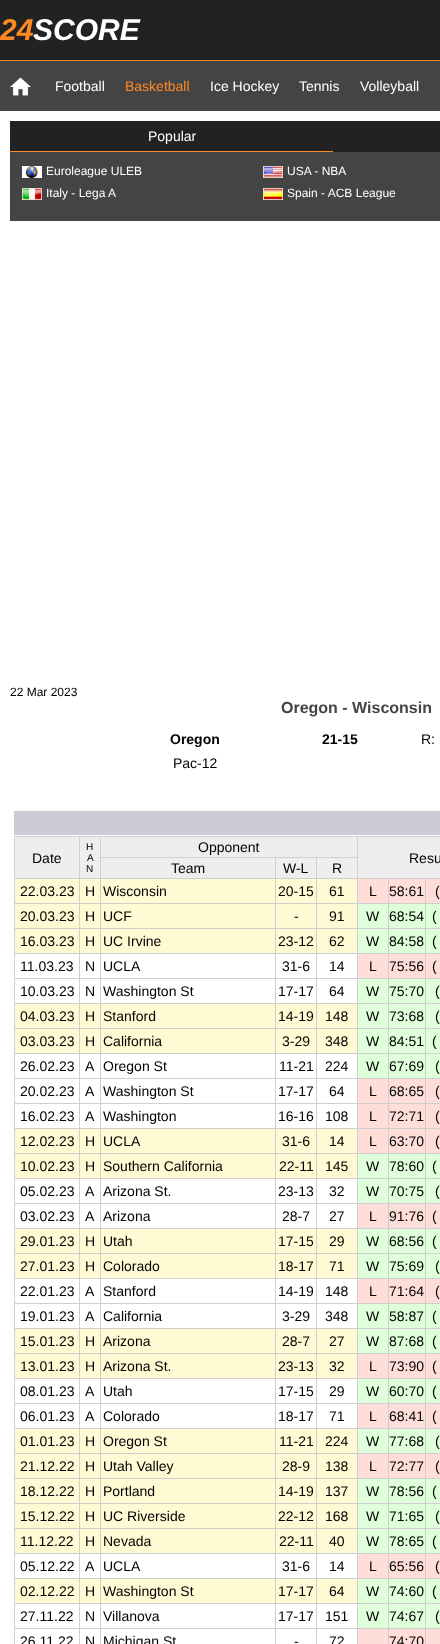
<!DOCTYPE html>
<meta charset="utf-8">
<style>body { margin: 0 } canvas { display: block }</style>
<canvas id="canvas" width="440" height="1644"></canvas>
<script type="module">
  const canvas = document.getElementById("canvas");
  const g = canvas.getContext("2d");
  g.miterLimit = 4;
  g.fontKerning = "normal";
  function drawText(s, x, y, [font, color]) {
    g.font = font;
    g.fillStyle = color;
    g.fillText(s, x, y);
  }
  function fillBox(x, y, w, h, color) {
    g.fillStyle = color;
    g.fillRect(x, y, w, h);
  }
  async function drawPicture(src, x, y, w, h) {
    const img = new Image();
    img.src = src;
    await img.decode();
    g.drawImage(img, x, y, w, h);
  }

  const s1 = ["italic bold 30px Liberation Sans", "#FF8923"];
  const s2 = ["italic bold 30px Liberation Sans", "#FFFFFF"];
  const s3 = ["14px Liberation Sans", "#FFFFFF"];
  const s4 = ["14px Liberation Sans", "#FF8923"];
  const s5 = ["12px Liberation Sans", "#FFFFFF"];
  const s6 = ["12px Liberation Sans", "#000000"];
  const s7 = ["bold 16px Liberation Sans", "#444444"];
  const s8 = ["bold 14px Liberation Sans", "#000000"];
  const s9 = ["14px Liberation Sans", "#000000"];
  const s10 = ["10px Liberation Sans", "#000000"];

  fillBox(0, 0, 440, 1644, "#FFFFFF");
  fillBox(0, 0, 440, 60, "#222222");
  drawText("24", 0, 40, s1);
  drawText("SCORE", 33, 40, s2);
  fillBox(0, 61, 440, 50, "#444444");
  fillBox(0, 60, 440, 1, "#FF8923");
  await drawPicture("pic1.png", 10, 77, 21, 19);
  drawText("Football", 55, 91, s3);
  drawText("Basketball", 125, 91, s4);
  drawText("Ice Hockey", 210, 91, s3);
  drawText("Tennis", 299, 91, s3);
  drawText("Volleyball", 360, 91, s3);
  fillBox(10, 152, 430, 69, "#444444");
  fillBox(10, 121, 430, 31, "#222222");
  fillBox(10, 151, 323, 1, "#FF8923");
  drawText("Popular", 148, 141, s3);
  await drawPicture("pic2.png", 22, 166, 20, 12);
  drawText("Euroleague ULEB", 46, 175, s5);
  await drawPicture("pic3.png", 263, 166, 20, 12);
  drawText("USA - NBA", 287, 175, s5);
  await drawPicture("pic4.png", 22, 188, 20, 12);
  drawText("Italy - Lega A", 46, 197, s5);
  await drawPicture("pic5.png", 263, 188, 20, 12);
  drawText("Spain - ACB League", 287, 197, s5);
  drawText("22 Mar 2023", 10, 696, s6);
  drawText("Oregon - Wisconsin", 281, 713, s7);
  drawText("Oregon", 170, 744, s8);
  drawText("21-15", 322, 744, s8);
  drawText("R:", 421, 744, s9);
  drawText("Pac-12", 173, 768, s9);
  fillBox(14, 811, 426, 24, "#CCCBD6");
  fillBox(15, 837, 64, 41, "#EEEEEE");
  fillBox(357, 836, 83, 1, "#CFCFCF");
  fillBox(316, 857, 42, 1, "#CFCFCF");
  fillBox(425, 878, 15, 1, "#CFCFCF");
  fillBox(425, 903, 15, 1, "#CFCFCF");
  fillBox(425, 928, 15, 1, "#CFCFCF");
  fillBox(425, 953, 15, 1, "#CFCFCF");
  fillBox(425, 978, 15, 1, "#CFCFCF");
  fillBox(425, 1003, 15, 1, "#CFCFCF");
  fillBox(425, 1028, 15, 1, "#CFCFCF");
  fillBox(425, 1053, 15, 1, "#CFCFCF");
  fillBox(425, 1078, 15, 1, "#CFCFCF");
  fillBox(425, 1103, 15, 1, "#CFCFCF");
  fillBox(425, 1128, 15, 1, "#CFCFCF");
  fillBox(425, 1153, 15, 1, "#CFCFCF");
  fillBox(425, 1178, 15, 1, "#CFCFCF");
  fillBox(425, 1203, 15, 1, "#CFCFCF");
  fillBox(425, 1228, 15, 1, "#CFCFCF");
  fillBox(425, 1253, 15, 1, "#CFCFCF");
  fillBox(425, 1278, 15, 1, "#CFCFCF");
  fillBox(425, 1303, 15, 1, "#CFCFCF");
  fillBox(425, 1328, 15, 1, "#CFCFCF");
  fillBox(425, 1353, 15, 1, "#CFCFCF");
  fillBox(425, 1378, 15, 1, "#CFCFCF");
  fillBox(425, 1403, 15, 1, "#CFCFCF");
  fillBox(425, 1428, 15, 1, "#CFCFCF");
  fillBox(425, 1453, 15, 1, "#CFCFCF");
  fillBox(425, 1478, 15, 1, "#CFCFCF");
  fillBox(425, 1503, 15, 1, "#CFCFCF");
  fillBox(425, 1528, 15, 1, "#CFCFCF");
  fillBox(425, 1553, 15, 1, "#CFCFCF");
  fillBox(425, 1578, 15, 1, "#CFCFCF");
  fillBox(425, 1603, 15, 1, "#CFCFCF");
  fillBox(425, 1628, 15, 1, "#CFCFCF");
  fillBox(425, 1628, 1, 16, "#CFCFCF");
  fillBox(388, 1628, 38, 1, "#CFCFCF");
  fillBox(425, 1603, 1, 26, "#CFCFCF");
  fillBox(388, 1603, 38, 1, "#CFCFCF");
  fillBox(425, 1578, 1, 26, "#CFCFCF");
  fillBox(388, 1578, 38, 1, "#CFCFCF");
  fillBox(425, 1553, 1, 26, "#CFCFCF");
  fillBox(388, 1553, 38, 1, "#CFCFCF");
  fillBox(425, 1528, 1, 26, "#CFCFCF");
  fillBox(388, 1528, 38, 1, "#CFCFCF");
  fillBox(425, 1503, 1, 26, "#CFCFCF");
  fillBox(388, 1503, 38, 1, "#CFCFCF");
  fillBox(425, 1478, 1, 26, "#CFCFCF");
  fillBox(388, 1478, 38, 1, "#CFCFCF");
  fillBox(425, 1453, 1, 26, "#CFCFCF");
  fillBox(388, 1453, 38, 1, "#CFCFCF");
  fillBox(425, 1428, 1, 26, "#CFCFCF");
  fillBox(388, 1428, 38, 1, "#CFCFCF");
  fillBox(425, 1403, 1, 26, "#CFCFCF");
  fillBox(388, 1403, 38, 1, "#CFCFCF");
  fillBox(425, 1378, 1, 26, "#CFCFCF");
  fillBox(388, 1378, 38, 1, "#CFCFCF");
  fillBox(425, 1353, 1, 26, "#CFCFCF");
  fillBox(388, 1353, 38, 1, "#CFCFCF");
  fillBox(425, 1328, 1, 26, "#CFCFCF");
  fillBox(388, 1328, 38, 1, "#CFCFCF");
  fillBox(425, 1303, 1, 26, "#CFCFCF");
  fillBox(388, 1303, 38, 1, "#CFCFCF");
  fillBox(425, 1278, 1, 26, "#CFCFCF");
  fillBox(388, 1278, 38, 1, "#CFCFCF");
  fillBox(425, 1253, 1, 26, "#CFCFCF");
  fillBox(388, 1253, 38, 1, "#CFCFCF");
  fillBox(425, 1228, 1, 26, "#CFCFCF");
  fillBox(388, 1228, 38, 1, "#CFCFCF");
  fillBox(425, 1203, 1, 26, "#CFCFCF");
  fillBox(388, 1203, 38, 1, "#CFCFCF");
  fillBox(425, 1178, 1, 26, "#CFCFCF");
  fillBox(388, 1178, 38, 1, "#CFCFCF");
  fillBox(425, 1153, 1, 26, "#CFCFCF");
  fillBox(388, 1153, 38, 1, "#CFCFCF");
  fillBox(425, 1128, 1, 26, "#CFCFCF");
  fillBox(388, 1128, 38, 1, "#CFCFCF");
  fillBox(425, 1103, 1, 26, "#CFCFCF");
  fillBox(388, 1103, 38, 1, "#CFCFCF");
  fillBox(425, 1078, 1, 26, "#CFCFCF");
  fillBox(388, 1078, 38, 1, "#CFCFCF");
  fillBox(425, 1053, 1, 26, "#CFCFCF");
  fillBox(388, 1053, 38, 1, "#CFCFCF");
  fillBox(425, 1028, 1, 26, "#CFCFCF");
  fillBox(388, 1028, 38, 1, "#CFCFCF");
  fillBox(425, 1003, 1, 26, "#CFCFCF");
  fillBox(388, 1003, 38, 1, "#CFCFCF");
  fillBox(425, 978, 1, 26, "#CFCFCF");
  fillBox(388, 978, 38, 1, "#CFCFCF");
  fillBox(425, 953, 1, 26, "#CFCFCF");
  fillBox(388, 953, 38, 1, "#CFCFCF");
  fillBox(425, 928, 1, 26, "#CFCFCF");
  fillBox(388, 928, 38, 1, "#CFCFCF");
  fillBox(425, 903, 1, 26, "#CFCFCF");
  fillBox(388, 903, 38, 1, "#CFCFCF");
  fillBox(425, 878, 1, 26, "#CFCFCF");
  fillBox(388, 878, 38, 1, "#CFCFCF");
  fillBox(388, 1628, 1, 16, "#CFCFCF");
  fillBox(357, 1628, 32, 1, "#CFCFCF");
  fillBox(388, 1603, 1, 26, "#CFCFCF");
  fillBox(357, 1603, 32, 1, "#CFCFCF");
  fillBox(388, 1578, 1, 26, "#CFCFCF");
  fillBox(357, 1578, 32, 1, "#CFCFCF");
  fillBox(388, 1553, 1, 26, "#CFCFCF");
  fillBox(357, 1553, 32, 1, "#CFCFCF");
  fillBox(388, 1528, 1, 26, "#CFCFCF");
  fillBox(357, 1528, 32, 1, "#CFCFCF");
  fillBox(388, 1503, 1, 26, "#CFCFCF");
  fillBox(357, 1503, 32, 1, "#CFCFCF");
  fillBox(388, 1478, 1, 26, "#CFCFCF");
  fillBox(357, 1478, 32, 1, "#CFCFCF");
  fillBox(388, 1453, 1, 26, "#CFCFCF");
  fillBox(357, 1453, 32, 1, "#CFCFCF");
  fillBox(388, 1428, 1, 26, "#CFCFCF");
  fillBox(357, 1428, 32, 1, "#CFCFCF");
  fillBox(388, 1403, 1, 26, "#CFCFCF");
  fillBox(357, 1403, 32, 1, "#CFCFCF");
  fillBox(388, 1378, 1, 26, "#CFCFCF");
  fillBox(357, 1378, 32, 1, "#CFCFCF");
  fillBox(388, 1353, 1, 26, "#CFCFCF");
  fillBox(357, 1353, 32, 1, "#CFCFCF");
  fillBox(388, 1328, 1, 26, "#CFCFCF");
  fillBox(357, 1328, 32, 1, "#CFCFCF");
  fillBox(388, 1303, 1, 26, "#CFCFCF");
  fillBox(357, 1303, 32, 1, "#CFCFCF");
  fillBox(388, 1278, 1, 26, "#CFCFCF");
  fillBox(357, 1278, 32, 1, "#CFCFCF");
  fillBox(388, 1253, 1, 26, "#CFCFCF");
  fillBox(357, 1253, 32, 1, "#CFCFCF");
  fillBox(388, 1228, 1, 26, "#CFCFCF");
  fillBox(357, 1228, 32, 1, "#CFCFCF");
  fillBox(388, 1203, 1, 26, "#CFCFCF");
  fillBox(357, 1203, 32, 1, "#CFCFCF");
  fillBox(388, 1178, 1, 26, "#CFCFCF");
  fillBox(357, 1178, 32, 1, "#CFCFCF");
  fillBox(388, 1153, 1, 26, "#CFCFCF");
  fillBox(357, 1153, 32, 1, "#CFCFCF");
  fillBox(388, 1128, 1, 26, "#CFCFCF");
  fillBox(357, 1128, 32, 1, "#CFCFCF");
  fillBox(388, 1103, 1, 26, "#CFCFCF");
  fillBox(357, 1103, 32, 1, "#CFCFCF");
  fillBox(388, 1078, 1, 26, "#CFCFCF");
  fillBox(357, 1078, 32, 1, "#CFCFCF");
  fillBox(388, 1053, 1, 26, "#CFCFCF");
  fillBox(357, 1053, 32, 1, "#CFCFCF");
  fillBox(388, 1028, 1, 26, "#CFCFCF");
  fillBox(357, 1028, 32, 1, "#CFCFCF");
  fillBox(388, 1003, 1, 26, "#CFCFCF");
  fillBox(357, 1003, 32, 1, "#CFCFCF");
  fillBox(388, 978, 1, 26, "#CFCFCF");
  fillBox(357, 978, 32, 1, "#CFCFCF");
  fillBox(388, 953, 1, 26, "#CFCFCF");
  fillBox(357, 953, 32, 1, "#CFCFCF");
  fillBox(388, 928, 1, 26, "#CFCFCF");
  fillBox(357, 928, 32, 1, "#CFCFCF");
  fillBox(388, 903, 1, 26, "#CFCFCF");
  fillBox(357, 903, 32, 1, "#CFCFCF");
  fillBox(388, 878, 1, 26, "#CFCFCF");
  fillBox(357, 878, 32, 1, "#CFCFCF");
  fillBox(357, 1628, 1, 16, "#CFCFCF");
  fillBox(316, 1628, 42, 1, "#CFCFCF");
  fillBox(357, 1603, 1, 26, "#CFCFCF");
  fillBox(316, 1603, 42, 1, "#CFCFCF");
  fillBox(357, 1578, 1, 26, "#CFCFCF");
  fillBox(316, 1578, 42, 1, "#CFCFCF");
  fillBox(357, 1553, 1, 26, "#CFCFCF");
  fillBox(316, 1553, 42, 1, "#CFCFCF");
  fillBox(357, 1528, 1, 26, "#CFCFCF");
  fillBox(316, 1528, 42, 1, "#CFCFCF");
  fillBox(357, 1503, 1, 26, "#CFCFCF");
  fillBox(316, 1503, 42, 1, "#CFCFCF");
  fillBox(357, 1478, 1, 26, "#CFCFCF");
  fillBox(316, 1478, 42, 1, "#CFCFCF");
  fillBox(357, 1453, 1, 26, "#CFCFCF");
  fillBox(316, 1453, 42, 1, "#CFCFCF");
  fillBox(357, 1428, 1, 26, "#CFCFCF");
  fillBox(316, 1428, 42, 1, "#CFCFCF");
  fillBox(357, 1403, 1, 26, "#CFCFCF");
  fillBox(316, 1403, 42, 1, "#CFCFCF");
  fillBox(357, 1378, 1, 26, "#CFCFCF");
  fillBox(316, 1378, 42, 1, "#CFCFCF");
  fillBox(357, 1353, 1, 26, "#CFCFCF");
  fillBox(316, 1353, 42, 1, "#CFCFCF");
  fillBox(357, 1328, 1, 26, "#CFCFCF");
  fillBox(316, 1328, 42, 1, "#CFCFCF");
  fillBox(357, 1303, 1, 26, "#CFCFCF");
  fillBox(316, 1303, 42, 1, "#CFCFCF");
  fillBox(357, 1278, 1, 26, "#CFCFCF");
  fillBox(316, 1278, 42, 1, "#CFCFCF");
  fillBox(357, 1253, 1, 26, "#CFCFCF");
  fillBox(316, 1253, 42, 1, "#CFCFCF");
  fillBox(357, 1228, 1, 26, "#CFCFCF");
  fillBox(316, 1228, 42, 1, "#CFCFCF");
  fillBox(357, 1203, 1, 26, "#CFCFCF");
  fillBox(316, 1203, 42, 1, "#CFCFCF");
  fillBox(357, 1178, 1, 26, "#CFCFCF");
  fillBox(316, 1178, 42, 1, "#CFCFCF");
  fillBox(357, 1153, 1, 26, "#CFCFCF");
  fillBox(316, 1153, 42, 1, "#CFCFCF");
  fillBox(357, 1128, 1, 26, "#CFCFCF");
  fillBox(316, 1128, 42, 1, "#CFCFCF");
  fillBox(357, 1103, 1, 26, "#CFCFCF");
  fillBox(316, 1103, 42, 1, "#CFCFCF");
  fillBox(357, 1078, 1, 26, "#CFCFCF");
  fillBox(316, 1078, 42, 1, "#CFCFCF");
  fillBox(357, 1053, 1, 26, "#CFCFCF");
  fillBox(316, 1053, 42, 1, "#CFCFCF");
  fillBox(357, 1028, 1, 26, "#CFCFCF");
  fillBox(316, 1028, 42, 1, "#CFCFCF");
  fillBox(357, 1003, 1, 26, "#CFCFCF");
  fillBox(316, 1003, 42, 1, "#CFCFCF");
  fillBox(357, 978, 1, 26, "#CFCFCF");
  fillBox(316, 978, 42, 1, "#CFCFCF");
  fillBox(357, 953, 1, 26, "#CFCFCF");
  fillBox(316, 953, 42, 1, "#CFCFCF");
  fillBox(357, 928, 1, 26, "#CFCFCF");
  fillBox(316, 928, 42, 1, "#CFCFCF");
  fillBox(357, 903, 1, 26, "#CFCFCF");
  fillBox(316, 903, 42, 1, "#CFCFCF");
  fillBox(357, 878, 1, 26, "#CFCFCF");
  fillBox(316, 878, 42, 1, "#CFCFCF");
  fillBox(357, 836, 1, 43, "#CFCFCF");
  fillBox(100, 836, 258, 1, "#CFCFCF");
  fillBox(15, 879, 342, 24, "#FFFAD4");
  fillBox(15, 904, 342, 24, "#FFFAD4");
  fillBox(15, 929, 342, 24, "#FFFAD4");
  fillBox(15, 1004, 342, 24, "#FFFAD4");
  fillBox(15, 1029, 342, 24, "#FFFAD4");
  fillBox(15, 1129, 342, 24, "#FFFAD4");
  fillBox(15, 1154, 342, 24, "#FFFAD4");
  fillBox(15, 1229, 342, 24, "#FFFAD4");
  fillBox(15, 1254, 342, 24, "#FFFAD4");
  fillBox(15, 1329, 342, 24, "#FFFAD4");
  fillBox(15, 1354, 342, 24, "#FFFAD4");
  fillBox(15, 1429, 342, 24, "#FFFAD4");
  fillBox(15, 1454, 342, 24, "#FFFAD4");
  fillBox(15, 1479, 342, 24, "#FFFAD4");
  fillBox(15, 1504, 342, 24, "#FFFAD4");
  fillBox(15, 1529, 342, 24, "#FFFAD4");
  fillBox(15, 1579, 342, 24, "#FFFAD4");
  fillBox(316, 1628, 1, 16, "#CFCFCF");
  fillBox(275, 1628, 42, 1, "#CFCFCF");
  fillBox(316, 1603, 1, 26, "#CFCFCF");
  fillBox(275, 1603, 42, 1, "#CFCFCF");
  fillBox(316, 1578, 1, 26, "#CFCFCF");
  fillBox(275, 1578, 42, 1, "#CFCFCF");
  fillBox(316, 1553, 1, 26, "#CFCFCF");
  fillBox(275, 1553, 42, 1, "#CFCFCF");
  fillBox(316, 1528, 1, 26, "#CFCFCF");
  fillBox(275, 1528, 42, 1, "#CFCFCF");
  fillBox(316, 1503, 1, 26, "#CFCFCF");
  fillBox(275, 1503, 42, 1, "#CFCFCF");
  fillBox(316, 1478, 1, 26, "#CFCFCF");
  fillBox(275, 1478, 42, 1, "#CFCFCF");
  fillBox(316, 1453, 1, 26, "#CFCFCF");
  fillBox(275, 1453, 42, 1, "#CFCFCF");
  fillBox(316, 1428, 1, 26, "#CFCFCF");
  fillBox(275, 1428, 42, 1, "#CFCFCF");
  fillBox(316, 1403, 1, 26, "#CFCFCF");
  fillBox(275, 1403, 42, 1, "#CFCFCF");
  fillBox(316, 1378, 1, 26, "#CFCFCF");
  fillBox(275, 1378, 42, 1, "#CFCFCF");
  fillBox(316, 1353, 1, 26, "#CFCFCF");
  fillBox(275, 1353, 42, 1, "#CFCFCF");
  fillBox(316, 1328, 1, 26, "#CFCFCF");
  fillBox(275, 1328, 42, 1, "#CFCFCF");
  fillBox(316, 1303, 1, 26, "#CFCFCF");
  fillBox(275, 1303, 42, 1, "#CFCFCF");
  fillBox(316, 1278, 1, 26, "#CFCFCF");
  fillBox(275, 1278, 42, 1, "#CFCFCF");
  fillBox(316, 1253, 1, 26, "#CFCFCF");
  fillBox(275, 1253, 42, 1, "#CFCFCF");
  fillBox(316, 1228, 1, 26, "#CFCFCF");
  fillBox(275, 1228, 42, 1, "#CFCFCF");
  fillBox(316, 1203, 1, 26, "#CFCFCF");
  fillBox(275, 1203, 42, 1, "#CFCFCF");
  fillBox(316, 1178, 1, 26, "#CFCFCF");
  fillBox(275, 1178, 42, 1, "#CFCFCF");
  fillBox(316, 1153, 1, 26, "#CFCFCF");
  fillBox(275, 1153, 42, 1, "#CFCFCF");
  fillBox(316, 1128, 1, 26, "#CFCFCF");
  fillBox(275, 1128, 42, 1, "#CFCFCF");
  fillBox(316, 1103, 1, 26, "#CFCFCF");
  fillBox(275, 1103, 42, 1, "#CFCFCF");
  fillBox(316, 1078, 1, 26, "#CFCFCF");
  fillBox(275, 1078, 42, 1, "#CFCFCF");
  fillBox(316, 1053, 1, 26, "#CFCFCF");
  fillBox(275, 1053, 42, 1, "#CFCFCF");
  fillBox(316, 1028, 1, 26, "#CFCFCF");
  fillBox(275, 1028, 42, 1, "#CFCFCF");
  fillBox(316, 1003, 1, 26, "#CFCFCF");
  fillBox(275, 1003, 42, 1, "#CFCFCF");
  fillBox(316, 978, 1, 26, "#CFCFCF");
  fillBox(275, 978, 42, 1, "#CFCFCF");
  fillBox(316, 953, 1, 26, "#CFCFCF");
  fillBox(275, 953, 42, 1, "#CFCFCF");
  fillBox(316, 928, 1, 26, "#CFCFCF");
  fillBox(275, 928, 42, 1, "#CFCFCF");
  fillBox(316, 903, 1, 26, "#CFCFCF");
  fillBox(275, 903, 42, 1, "#CFCFCF");
  fillBox(316, 878, 1, 26, "#CFCFCF");
  fillBox(275, 878, 42, 1, "#CFCFCF");
  fillBox(316, 857, 1, 22, "#CFCFCF");
  fillBox(275, 857, 42, 1, "#CFCFCF");
  fillBox(275, 1628, 1, 16, "#CFCFCF");
  fillBox(100, 1628, 176, 1, "#CFCFCF");
  fillBox(275, 1603, 1, 26, "#CFCFCF");
  fillBox(100, 1603, 176, 1, "#CFCFCF");
  fillBox(275, 1578, 1, 26, "#CFCFCF");
  fillBox(100, 1578, 176, 1, "#CFCFCF");
  fillBox(275, 1553, 1, 26, "#CFCFCF");
  fillBox(100, 1553, 176, 1, "#CFCFCF");
  fillBox(275, 1528, 1, 26, "#CFCFCF");
  fillBox(100, 1528, 176, 1, "#CFCFCF");
  fillBox(275, 1503, 1, 26, "#CFCFCF");
  fillBox(100, 1503, 176, 1, "#CFCFCF");
  fillBox(275, 1478, 1, 26, "#CFCFCF");
  fillBox(100, 1478, 176, 1, "#CFCFCF");
  fillBox(275, 1453, 1, 26, "#CFCFCF");
  fillBox(100, 1453, 176, 1, "#CFCFCF");
  fillBox(275, 1428, 1, 26, "#CFCFCF");
  fillBox(100, 1428, 176, 1, "#CFCFCF");
  fillBox(275, 1403, 1, 26, "#CFCFCF");
  fillBox(100, 1403, 176, 1, "#CFCFCF");
  fillBox(275, 1378, 1, 26, "#CFCFCF");
  fillBox(100, 1378, 176, 1, "#CFCFCF");
  fillBox(275, 1353, 1, 26, "#CFCFCF");
  fillBox(100, 1353, 176, 1, "#CFCFCF");
  fillBox(275, 1328, 1, 26, "#CFCFCF");
  fillBox(100, 1328, 176, 1, "#CFCFCF");
  fillBox(275, 1303, 1, 26, "#CFCFCF");
  fillBox(100, 1303, 176, 1, "#CFCFCF");
  fillBox(275, 1278, 1, 26, "#CFCFCF");
  fillBox(100, 1278, 176, 1, "#CFCFCF");
  fillBox(275, 1253, 1, 26, "#CFCFCF");
  fillBox(100, 1253, 176, 1, "#CFCFCF");
  fillBox(275, 1228, 1, 26, "#CFCFCF");
  fillBox(100, 1228, 176, 1, "#CFCFCF");
  fillBox(275, 1203, 1, 26, "#CFCFCF");
  fillBox(100, 1203, 176, 1, "#CFCFCF");
  fillBox(275, 1178, 1, 26, "#CFCFCF");
  fillBox(100, 1178, 176, 1, "#CFCFCF");
  fillBox(275, 1153, 1, 26, "#CFCFCF");
  fillBox(100, 1153, 176, 1, "#CFCFCF");
  fillBox(275, 1128, 1, 26, "#CFCFCF");
  fillBox(100, 1128, 176, 1, "#CFCFCF");
  fillBox(275, 1103, 1, 26, "#CFCFCF");
  fillBox(100, 1103, 176, 1, "#CFCFCF");
  fillBox(275, 1078, 1, 26, "#CFCFCF");
  fillBox(100, 1078, 176, 1, "#CFCFCF");
  fillBox(275, 1053, 1, 26, "#CFCFCF");
  fillBox(100, 1053, 176, 1, "#CFCFCF");
  fillBox(275, 1028, 1, 26, "#CFCFCF");
  fillBox(100, 1028, 176, 1, "#CFCFCF");
  fillBox(275, 1003, 1, 26, "#CFCFCF");
  fillBox(100, 1003, 176, 1, "#CFCFCF");
  fillBox(275, 978, 1, 26, "#CFCFCF");
  fillBox(100, 978, 176, 1, "#CFCFCF");
  fillBox(275, 953, 1, 26, "#CFCFCF");
  fillBox(100, 953, 176, 1, "#CFCFCF");
  fillBox(275, 928, 1, 26, "#CFCFCF");
  fillBox(100, 928, 176, 1, "#CFCFCF");
  fillBox(275, 903, 1, 26, "#CFCFCF");
  fillBox(100, 903, 176, 1, "#CFCFCF");
  fillBox(275, 878, 1, 26, "#CFCFCF");
  fillBox(100, 878, 176, 1, "#CFCFCF");
  fillBox(275, 857, 1, 22, "#CFCFCF");
  fillBox(100, 857, 176, 1, "#CFCFCF");
  fillBox(100, 1628, 1, 16, "#CFCFCF");
  fillBox(79, 1628, 22, 1, "#CFCFCF");
  fillBox(100, 1603, 1, 26, "#CFCFCF");
  fillBox(79, 1603, 22, 1, "#CFCFCF");
  fillBox(100, 1578, 1, 26, "#CFCFCF");
  fillBox(79, 1578, 22, 1, "#CFCFCF");
  fillBox(100, 1553, 1, 26, "#CFCFCF");
  fillBox(79, 1553, 22, 1, "#CFCFCF");
  fillBox(100, 1528, 1, 26, "#CFCFCF");
  fillBox(79, 1528, 22, 1, "#CFCFCF");
  fillBox(100, 1503, 1, 26, "#CFCFCF");
  fillBox(79, 1503, 22, 1, "#CFCFCF");
  fillBox(100, 1478, 1, 26, "#CFCFCF");
  fillBox(79, 1478, 22, 1, "#CFCFCF");
  fillBox(100, 1453, 1, 26, "#CFCFCF");
  fillBox(79, 1453, 22, 1, "#CFCFCF");
  fillBox(100, 1428, 1, 26, "#CFCFCF");
  fillBox(79, 1428, 22, 1, "#CFCFCF");
  fillBox(100, 1403, 1, 26, "#CFCFCF");
  fillBox(79, 1403, 22, 1, "#CFCFCF");
  fillBox(100, 1378, 1, 26, "#CFCFCF");
  fillBox(79, 1378, 22, 1, "#CFCFCF");
  fillBox(100, 1353, 1, 26, "#CFCFCF");
  fillBox(79, 1353, 22, 1, "#CFCFCF");
  fillBox(100, 1328, 1, 26, "#CFCFCF");
  fillBox(79, 1328, 22, 1, "#CFCFCF");
  fillBox(100, 1303, 1, 26, "#CFCFCF");
  fillBox(79, 1303, 22, 1, "#CFCFCF");
  fillBox(100, 1278, 1, 26, "#CFCFCF");
  fillBox(79, 1278, 22, 1, "#CFCFCF");
  fillBox(100, 1253, 1, 26, "#CFCFCF");
  fillBox(79, 1253, 22, 1, "#CFCFCF");
  fillBox(100, 1228, 1, 26, "#CFCFCF");
  fillBox(79, 1228, 22, 1, "#CFCFCF");
  fillBox(100, 1203, 1, 26, "#CFCFCF");
  fillBox(79, 1203, 22, 1, "#CFCFCF");
  fillBox(100, 1178, 1, 26, "#CFCFCF");
  fillBox(79, 1178, 22, 1, "#CFCFCF");
  fillBox(100, 1153, 1, 26, "#CFCFCF");
  fillBox(79, 1153, 22, 1, "#CFCFCF");
  fillBox(100, 1128, 1, 26, "#CFCFCF");
  fillBox(79, 1128, 22, 1, "#CFCFCF");
  fillBox(100, 1103, 1, 26, "#CFCFCF");
  fillBox(79, 1103, 22, 1, "#CFCFCF");
  fillBox(100, 1078, 1, 26, "#CFCFCF");
  fillBox(79, 1078, 22, 1, "#CFCFCF");
  fillBox(100, 1053, 1, 26, "#CFCFCF");
  fillBox(79, 1053, 22, 1, "#CFCFCF");
  fillBox(100, 1028, 1, 26, "#CFCFCF");
  fillBox(79, 1028, 22, 1, "#CFCFCF");
  fillBox(100, 1003, 1, 26, "#CFCFCF");
  fillBox(79, 1003, 22, 1, "#CFCFCF");
  fillBox(100, 978, 1, 26, "#CFCFCF");
  fillBox(79, 978, 22, 1, "#CFCFCF");
  fillBox(100, 953, 1, 26, "#CFCFCF");
  fillBox(79, 953, 22, 1, "#CFCFCF");
  fillBox(100, 928, 1, 26, "#CFCFCF");
  fillBox(79, 928, 22, 1, "#CFCFCF");
  fillBox(100, 903, 1, 26, "#CFCFCF");
  fillBox(79, 903, 22, 1, "#CFCFCF");
  fillBox(100, 878, 1, 26, "#CFCFCF");
  fillBox(79, 878, 22, 1, "#CFCFCF");
  fillBox(100, 857, 1, 22, "#CFCFCF");
  fillBox(100, 836, 1, 22, "#CFCFCF");
  fillBox(79, 836, 22, 1, "#CFCFCF");
  fillBox(79, 1628, 1, 16, "#CFCFCF");
  fillBox(14, 1628, 66, 1, "#CFCFCF");
  fillBox(79, 1603, 1, 26, "#CFCFCF");
  fillBox(14, 1603, 66, 1, "#CFCFCF");
  fillBox(79, 1578, 1, 26, "#CFCFCF");
  fillBox(14, 1578, 66, 1, "#CFCFCF");
  fillBox(79, 1553, 1, 26, "#CFCFCF");
  fillBox(14, 1553, 66, 1, "#CFCFCF");
  fillBox(79, 1528, 1, 26, "#CFCFCF");
  fillBox(14, 1528, 66, 1, "#CFCFCF");
  fillBox(79, 1503, 1, 26, "#CFCFCF");
  fillBox(14, 1503, 66, 1, "#CFCFCF");
  fillBox(79, 1478, 1, 26, "#CFCFCF");
  fillBox(14, 1478, 66, 1, "#CFCFCF");
  fillBox(79, 1453, 1, 26, "#CFCFCF");
  fillBox(14, 1453, 66, 1, "#CFCFCF");
  fillBox(79, 1428, 1, 26, "#CFCFCF");
  fillBox(14, 1428, 66, 1, "#CFCFCF");
  fillBox(79, 1403, 1, 26, "#CFCFCF");
  fillBox(14, 1403, 66, 1, "#CFCFCF");
  fillBox(79, 1378, 1, 26, "#CFCFCF");
  fillBox(14, 1378, 66, 1, "#CFCFCF");
  fillBox(79, 1353, 1, 26, "#CFCFCF");
  fillBox(14, 1353, 66, 1, "#CFCFCF");
  fillBox(79, 1328, 1, 26, "#CFCFCF");
  fillBox(14, 1328, 66, 1, "#CFCFCF");
  fillBox(79, 1303, 1, 26, "#CFCFCF");
  fillBox(14, 1303, 66, 1, "#CFCFCF");
  fillBox(79, 1278, 1, 26, "#CFCFCF");
  fillBox(14, 1278, 66, 1, "#CFCFCF");
  fillBox(79, 1253, 1, 26, "#CFCFCF");
  fillBox(14, 1253, 66, 1, "#CFCFCF");
  fillBox(79, 1228, 1, 26, "#CFCFCF");
  fillBox(14, 1228, 66, 1, "#CFCFCF");
  fillBox(79, 1203, 1, 26, "#CFCFCF");
  fillBox(14, 1203, 66, 1, "#CFCFCF");
  fillBox(79, 1178, 1, 26, "#CFCFCF");
  fillBox(14, 1178, 66, 1, "#CFCFCF");
  fillBox(79, 1153, 1, 26, "#CFCFCF");
  fillBox(14, 1153, 66, 1, "#CFCFCF");
  fillBox(79, 1128, 1, 26, "#CFCFCF");
  fillBox(14, 1128, 66, 1, "#CFCFCF");
  fillBox(79, 1103, 1, 26, "#CFCFCF");
  fillBox(14, 1103, 66, 1, "#CFCFCF");
  fillBox(79, 1078, 1, 26, "#CFCFCF");
  fillBox(14, 1078, 66, 1, "#CFCFCF");
  fillBox(79, 1053, 1, 26, "#CFCFCF");
  fillBox(14, 1053, 66, 1, "#CFCFCF");
  fillBox(79, 1028, 1, 26, "#CFCFCF");
  fillBox(14, 1028, 66, 1, "#CFCFCF");
  fillBox(79, 1003, 1, 26, "#CFCFCF");
  fillBox(14, 1003, 66, 1, "#CFCFCF");
  fillBox(79, 978, 1, 26, "#CFCFCF");
  fillBox(14, 978, 66, 1, "#CFCFCF");
  fillBox(79, 953, 1, 26, "#CFCFCF");
  fillBox(14, 953, 66, 1, "#CFCFCF");
  fillBox(79, 928, 1, 26, "#CFCFCF");
  fillBox(14, 928, 66, 1, "#CFCFCF");
  fillBox(79, 903, 1, 26, "#CFCFCF");
  fillBox(14, 903, 66, 1, "#CFCFCF");
  fillBox(79, 878, 1, 26, "#CFCFCF");
  fillBox(14, 878, 66, 1, "#CFCFCF");
  fillBox(79, 836, 1, 43, "#CFCFCF");
  fillBox(14, 836, 66, 1, "#CFCFCF");
  fillBox(14, 1628, 1, 16, "#CFCFCF");
  fillBox(14, 1603, 1, 26, "#CFCFCF");
  fillBox(14, 1578, 1, 26, "#CFCFCF");
  fillBox(14, 1553, 1, 26, "#CFCFCF");
  fillBox(14, 1528, 1, 26, "#CFCFCF");
  fillBox(14, 1503, 1, 26, "#CFCFCF");
  fillBox(14, 1478, 1, 26, "#CFCFCF");
  fillBox(14, 1453, 1, 26, "#CFCFCF");
  fillBox(14, 1428, 1, 26, "#CFCFCF");
  fillBox(14, 1403, 1, 26, "#CFCFCF");
  fillBox(14, 1378, 1, 26, "#CFCFCF");
  fillBox(14, 1353, 1, 26, "#CFCFCF");
  fillBox(14, 1328, 1, 26, "#CFCFCF");
  fillBox(14, 1303, 1, 26, "#CFCFCF");
  fillBox(14, 1278, 1, 26, "#CFCFCF");
  fillBox(14, 1253, 1, 26, "#CFCFCF");
  fillBox(14, 1228, 1, 26, "#CFCFCF");
  fillBox(14, 1203, 1, 26, "#CFCFCF");
  fillBox(14, 1178, 1, 26, "#CFCFCF");
  fillBox(14, 1153, 1, 26, "#CFCFCF");
  fillBox(14, 1128, 1, 26, "#CFCFCF");
  fillBox(14, 1103, 1, 26, "#CFCFCF");
  fillBox(14, 1078, 1, 26, "#CFCFCF");
  fillBox(14, 1053, 1, 26, "#CFCFCF");
  fillBox(14, 1028, 1, 26, "#CFCFCF");
  fillBox(14, 1003, 1, 26, "#CFCFCF");
  fillBox(14, 978, 1, 26, "#CFCFCF");
  fillBox(14, 953, 1, 26, "#CFCFCF");
  fillBox(14, 928, 1, 26, "#CFCFCF");
  fillBox(14, 903, 1, 26, "#CFCFCF");
  fillBox(14, 878, 1, 26, "#CFCFCF");
  fillBox(14, 836, 1, 43, "#CFCFCF");
  drawText("Date", 32, 863, s9);
  fillBox(80, 837, 20, 41, "#EEEEEE");
  drawText("H", 86, 850, s10);
  drawText("A", 87, 861, s10);
  drawText("N", 86, 872, s10);
  fillBox(101, 837, 256, 20, "#EEEEEE");
  drawText("Opponent", 198, 852, s9);
  fillBox(358, 837, 82, 41, "#EEEEEE");
  drawText("Resu", 409, 863, s9);
  fillBox(101, 858, 174, 20, "#EEEEEE");
  drawText("Team", 171, 873, s9);
  fillBox(276, 858, 40, 20, "#EEEEEE");
  drawText("W-L", 283, 873, s9);
  fillBox(317, 858, 40, 20, "#EEEEEE");
  drawText("R", 332, 873, s9);
  drawText("22.03.23", 20, 896, s9);
  drawText("H", 85, 896, s9);
  drawText("Wisconsin", 103, 896, s9);
  drawText("20-15", 278, 896, s9);
  drawText("61", 329, 896, s9);
  fillBox(358, 879, 30, 24, "#FFDED9");
  drawText("L", 369, 896, s9);
  fillBox(389, 879, 36, 24, "#FFDED9");
  drawText("58:61", 389, 896, s9);
  fillBox(426, 879, 14, 24, "#FFDED9");
  drawText("(", 435, 896, s9);
  drawText("20.03.23", 20, 921, s9);
  drawText("H", 85, 921, s9);
  drawText("UCF", 103, 921, s9);
  drawText("-", 294, 921, s9);
  drawText("91", 329, 921, s9);
  fillBox(358, 904, 30, 24, "#DEFFD9");
  drawText("W", 366, 921, s9);
  fillBox(389, 904, 36, 24, "#DEFFD9");
  drawText("68:54", 389, 921, s9);
  fillBox(426, 904, 14, 24, "#DEFFD9");
  drawText("(", 432, 921, s9);
  drawText("16.03.23", 20, 946, s9);
  drawText("H", 85, 946, s9);
  drawText("UC Irvine", 103, 946, s9);
  drawText("23-12", 278, 946, s9);
  drawText("62", 329, 946, s9);
  fillBox(358, 929, 30, 24, "#DEFFD9");
  drawText("W", 366, 946, s9);
  fillBox(389, 929, 36, 24, "#DEFFD9");
  drawText("84:58", 389, 946, s9);
  fillBox(426, 929, 14, 24, "#DEFFD9");
  drawText("(", 432, 946, s9);
  drawText("11.03.23", 20, 971, s9);
  drawText("N", 85, 971, s9);
  drawText("UCLA", 103, 971, s9);
  drawText("31-6", 282, 971, s9);
  drawText("14", 329, 971, s9);
  fillBox(358, 954, 30, 24, "#FFDED9");
  drawText("L", 369, 971, s9);
  fillBox(389, 954, 36, 24, "#FFDED9");
  drawText("75:56", 389, 971, s9);
  fillBox(426, 954, 14, 24, "#FFDED9");
  drawText("(", 432, 971, s9);
  drawText("10.03.23", 20, 996, s9);
  drawText("N", 85, 996, s9);
  drawText("Washington St", 103, 996, s9);
  drawText("17-17", 278, 996, s9);
  drawText("64", 329, 996, s9);
  fillBox(358, 979, 30, 24, "#DEFFD9");
  drawText("W", 366, 996, s9);
  fillBox(389, 979, 36, 24, "#DEFFD9");
  drawText("75:70", 389, 996, s9);
  fillBox(426, 979, 14, 24, "#DEFFD9");
  drawText("(", 435, 996, s9);
  drawText("04.03.23", 20, 1021, s9);
  drawText("H", 85, 1021, s9);
  drawText("Stanford", 103, 1021, s9);
  drawText("14-19", 278, 1021, s9);
  drawText("148", 325, 1021, s9);
  fillBox(358, 1004, 30, 24, "#DEFFD9");
  drawText("W", 366, 1021, s9);
  fillBox(389, 1004, 36, 24, "#DEFFD9");
  drawText("73:68", 389, 1021, s9);
  fillBox(426, 1004, 14, 24, "#DEFFD9");
  drawText("(", 435, 1021, s9);
  drawText("03.03.23", 20, 1046, s9);
  drawText("H", 85, 1046, s9);
  drawText("California", 103, 1046, s9);
  drawText("3-29", 282, 1046, s9);
  drawText("348", 325, 1046, s9);
  fillBox(358, 1029, 30, 24, "#DEFFD9");
  drawText("W", 366, 1046, s9);
  fillBox(389, 1029, 36, 24, "#DEFFD9");
  drawText("84:51", 389, 1046, s9);
  fillBox(426, 1029, 14, 24, "#DEFFD9");
  drawText("(", 432, 1046, s9);
  drawText("26.02.23", 20, 1071, s9);
  drawText("A", 85, 1071, s9);
  drawText("Oregon St", 103, 1071, s9);
  drawText("11-21", 279, 1071, s9);
  drawText("224", 325, 1071, s9);
  fillBox(358, 1054, 30, 24, "#DEFFD9");
  drawText("W", 366, 1071, s9);
  fillBox(389, 1054, 36, 24, "#DEFFD9");
  drawText("67:69", 389, 1071, s9);
  fillBox(426, 1054, 14, 24, "#DEFFD9");
  drawText("(", 435, 1071, s9);
  drawText("20.02.23", 20, 1096, s9);
  drawText("A", 85, 1096, s9);
  drawText("Washington St", 103, 1096, s9);
  drawText("17-17", 278, 1096, s9);
  drawText("64", 329, 1096, s9);
  fillBox(358, 1079, 30, 24, "#FFDED9");
  drawText("L", 369, 1096, s9);
  fillBox(389, 1079, 36, 24, "#FFDED9");
  drawText("68:65", 389, 1096, s9);
  fillBox(426, 1079, 14, 24, "#FFDED9");
  drawText("(", 435, 1096, s9);
  drawText("16.02.23", 20, 1121, s9);
  drawText("A", 85, 1121, s9);
  drawText("Washington", 103, 1121, s9);
  drawText("16-16", 278, 1121, s9);
  drawText("108", 325, 1121, s9);
  fillBox(358, 1104, 30, 24, "#FFDED9");
  drawText("L", 369, 1121, s9);
  fillBox(389, 1104, 36, 24, "#FFDED9");
  drawText("72:71", 389, 1121, s9);
  fillBox(426, 1104, 14, 24, "#FFDED9");
  drawText("(", 435, 1121, s9);
  drawText("12.02.23", 20, 1146, s9);
  drawText("H", 85, 1146, s9);
  drawText("UCLA", 103, 1146, s9);
  drawText("31-6", 282, 1146, s9);
  drawText("14", 329, 1146, s9);
  fillBox(358, 1129, 30, 24, "#FFDED9");
  drawText("L", 369, 1146, s9);
  fillBox(389, 1129, 36, 24, "#FFDED9");
  drawText("63:70", 389, 1146, s9);
  fillBox(426, 1129, 14, 24, "#FFDED9");
  drawText("(", 435, 1146, s9);
  drawText("10.02.23", 20, 1171, s9);
  drawText("H", 85, 1171, s9);
  drawText("Southern California", 103, 1171, s9);
  drawText("22-11", 279, 1171, s9);
  drawText("145", 325, 1171, s9);
  fillBox(358, 1154, 30, 24, "#DEFFD9");
  drawText("W", 366, 1171, s9);
  fillBox(389, 1154, 36, 24, "#DEFFD9");
  drawText("78:60", 389, 1171, s9);
  fillBox(426, 1154, 14, 24, "#DEFFD9");
  drawText("(", 432, 1171, s9);
  drawText("05.02.23", 20, 1196, s9);
  drawText("A", 85, 1196, s9);
  drawText("Arizona St.", 103, 1196, s9);
  drawText("23-13", 278, 1196, s9);
  drawText("32", 329, 1196, s9);
  fillBox(358, 1179, 30, 24, "#DEFFD9");
  drawText("W", 366, 1196, s9);
  fillBox(389, 1179, 36, 24, "#DEFFD9");
  drawText("70:75", 389, 1196, s9);
  fillBox(426, 1179, 14, 24, "#DEFFD9");
  drawText("(", 435, 1196, s9);
  drawText("03.02.23", 20, 1221, s9);
  drawText("A", 85, 1221, s9);
  drawText("Arizona", 103, 1221, s9);
  drawText("28-7", 282, 1221, s9);
  drawText("27", 329, 1221, s9);
  fillBox(358, 1204, 30, 24, "#FFDED9");
  drawText("L", 369, 1221, s9);
  fillBox(389, 1204, 36, 24, "#FFDED9");
  drawText("91:76", 389, 1221, s9);
  fillBox(426, 1204, 14, 24, "#FFDED9");
  drawText("(", 432, 1221, s9);
  drawText("29.01.23", 20, 1246, s9);
  drawText("H", 85, 1246, s9);
  drawText("Utah", 103, 1246, s9);
  drawText("17-15", 278, 1246, s9);
  drawText("29", 329, 1246, s9);
  fillBox(358, 1229, 30, 24, "#DEFFD9");
  drawText("W", 366, 1246, s9);
  fillBox(389, 1229, 36, 24, "#DEFFD9");
  drawText("68:56", 389, 1246, s9);
  fillBox(426, 1229, 14, 24, "#DEFFD9");
  drawText("(", 432, 1246, s9);
  drawText("27.01.23", 20, 1271, s9);
  drawText("H", 85, 1271, s9);
  drawText("Colorado", 103, 1271, s9);
  drawText("18-17", 278, 1271, s9);
  drawText("71", 329, 1271, s9);
  fillBox(358, 1254, 30, 24, "#DEFFD9");
  drawText("W", 366, 1271, s9);
  fillBox(389, 1254, 36, 24, "#DEFFD9");
  drawText("75:69", 389, 1271, s9);
  fillBox(426, 1254, 14, 24, "#DEFFD9");
  drawText("(", 435, 1271, s9);
  drawText("22.01.23", 20, 1296, s9);
  drawText("A", 85, 1296, s9);
  drawText("Stanford", 103, 1296, s9);
  drawText("14-19", 278, 1296, s9);
  drawText("148", 325, 1296, s9);
  fillBox(358, 1279, 30, 24, "#FFDED9");
  drawText("L", 369, 1296, s9);
  fillBox(389, 1279, 36, 24, "#FFDED9");
  drawText("71:64", 389, 1296, s9);
  fillBox(426, 1279, 14, 24, "#FFDED9");
  drawText("(", 435, 1296, s9);
  drawText("19.01.23", 20, 1321, s9);
  drawText("A", 85, 1321, s9);
  drawText("California", 103, 1321, s9);
  drawText("3-29", 282, 1321, s9);
  drawText("348", 325, 1321, s9);
  fillBox(358, 1304, 30, 24, "#DEFFD9");
  drawText("W", 366, 1321, s9);
  fillBox(389, 1304, 36, 24, "#DEFFD9");
  drawText("58:87", 389, 1321, s9);
  fillBox(426, 1304, 14, 24, "#DEFFD9");
  drawText("(", 432, 1321, s9);
  drawText("15.01.23", 20, 1346, s9);
  drawText("H", 85, 1346, s9);
  drawText("Arizona", 103, 1346, s9);
  drawText("28-7", 282, 1346, s9);
  drawText("27", 329, 1346, s9);
  fillBox(358, 1329, 30, 24, "#DEFFD9");
  drawText("W", 366, 1346, s9);
  fillBox(389, 1329, 36, 24, "#DEFFD9");
  drawText("87:68", 389, 1346, s9);
  fillBox(426, 1329, 14, 24, "#DEFFD9");
  drawText("(", 432, 1346, s9);
  drawText("13.01.23", 20, 1371, s9);
  drawText("H", 85, 1371, s9);
  drawText("Arizona St.", 103, 1371, s9);
  drawText("23-13", 278, 1371, s9);
  drawText("32", 329, 1371, s9);
  fillBox(358, 1354, 30, 24, "#FFDED9");
  drawText("L", 369, 1371, s9);
  fillBox(389, 1354, 36, 24, "#FFDED9");
  drawText("73:90", 389, 1371, s9);
  fillBox(426, 1354, 14, 24, "#FFDED9");
  drawText("(", 432, 1371, s9);
  drawText("08.01.23", 20, 1396, s9);
  drawText("A", 85, 1396, s9);
  drawText("Utah", 103, 1396, s9);
  drawText("17-15", 278, 1396, s9);
  drawText("29", 329, 1396, s9);
  fillBox(358, 1379, 30, 24, "#DEFFD9");
  drawText("W", 366, 1396, s9);
  fillBox(389, 1379, 36, 24, "#DEFFD9");
  drawText("60:70", 389, 1396, s9);
  fillBox(426, 1379, 14, 24, "#DEFFD9");
  drawText("(", 432, 1396, s9);
  drawText("06.01.23", 20, 1421, s9);
  drawText("A", 85, 1421, s9);
  drawText("Colorado", 103, 1421, s9);
  drawText("18-17", 278, 1421, s9);
  drawText("71", 329, 1421, s9);
  fillBox(358, 1404, 30, 24, "#FFDED9");
  drawText("L", 369, 1421, s9);
  fillBox(389, 1404, 36, 24, "#FFDED9");
  drawText("68:41", 389, 1421, s9);
  fillBox(426, 1404, 14, 24, "#FFDED9");
  drawText("(", 432, 1421, s9);
  drawText("01.01.23", 20, 1446, s9);
  drawText("H", 85, 1446, s9);
  drawText("Oregon St", 103, 1446, s9);
  drawText("11-21", 279, 1446, s9);
  drawText("224", 325, 1446, s9);
  fillBox(358, 1429, 30, 24, "#DEFFD9");
  drawText("W", 366, 1446, s9);
  fillBox(389, 1429, 36, 24, "#DEFFD9");
  drawText("77:68", 389, 1446, s9);
  fillBox(426, 1429, 14, 24, "#DEFFD9");
  drawText("(", 435, 1446, s9);
  drawText("21.12.22", 20, 1471, s9);
  drawText("H", 85, 1471, s9);
  drawText("Utah Valley", 103, 1471, s9);
  drawText("28-9", 282, 1471, s9);
  drawText("138", 325, 1471, s9);
  fillBox(358, 1454, 30, 24, "#FFDED9");
  drawText("L", 369, 1471, s9);
  fillBox(389, 1454, 36, 24, "#FFDED9");
  drawText("72:77", 389, 1471, s9);
  fillBox(426, 1454, 14, 24, "#FFDED9");
  drawText("(", 435, 1471, s9);
  drawText("18.12.22", 20, 1496, s9);
  drawText("H", 85, 1496, s9);
  drawText("Portland", 103, 1496, s9);
  drawText("14-19", 278, 1496, s9);
  drawText("137", 325, 1496, s9);
  fillBox(358, 1479, 30, 24, "#DEFFD9");
  drawText("W", 366, 1496, s9);
  fillBox(389, 1479, 36, 24, "#DEFFD9");
  drawText("78:56", 389, 1496, s9);
  fillBox(426, 1479, 14, 24, "#DEFFD9");
  drawText("(", 432, 1496, s9);
  drawText("15.12.22", 20, 1521, s9);
  drawText("H", 85, 1521, s9);
  drawText("UC Riverside", 103, 1521, s9);
  drawText("22-12", 278, 1521, s9);
  drawText("168", 325, 1521, s9);
  fillBox(358, 1504, 30, 24, "#DEFFD9");
  drawText("W", 366, 1521, s9);
  fillBox(389, 1504, 36, 24, "#DEFFD9");
  drawText("71:65", 389, 1521, s9);
  fillBox(426, 1504, 14, 24, "#DEFFD9");
  drawText("(", 435, 1521, s9);
  drawText("11.12.22", 20, 1546, s9);
  drawText("H", 85, 1546, s9);
  drawText("Nevada", 103, 1546, s9);
  drawText("22-11", 279, 1546, s9);
  drawText("40", 329, 1546, s9);
  fillBox(358, 1529, 30, 24, "#DEFFD9");
  drawText("W", 366, 1546, s9);
  fillBox(389, 1529, 36, 24, "#DEFFD9");
  drawText("78:65", 389, 1546, s9);
  fillBox(426, 1529, 14, 24, "#DEFFD9");
  drawText("(", 432, 1546, s9);
  drawText("05.12.22", 20, 1571, s9);
  drawText("A", 85, 1571, s9);
  drawText("UCLA", 103, 1571, s9);
  drawText("31-6", 282, 1571, s9);
  drawText("14", 329, 1571, s9);
  fillBox(358, 1554, 30, 24, "#FFDED9");
  drawText("L", 369, 1571, s9);
  fillBox(389, 1554, 36, 24, "#FFDED9");
  drawText("65:56", 389, 1571, s9);
  fillBox(426, 1554, 14, 24, "#FFDED9");
  drawText("(", 435, 1571, s9);
  drawText("02.12.22", 20, 1596, s9);
  drawText("H", 85, 1596, s9);
  drawText("Washington St", 103, 1596, s9);
  drawText("17-17", 278, 1596, s9);
  drawText("64", 329, 1596, s9);
  fillBox(358, 1579, 30, 24, "#DEFFD9");
  drawText("W", 366, 1596, s9);
  fillBox(389, 1579, 36, 24, "#DEFFD9");
  drawText("74:60", 389, 1596, s9);
  fillBox(426, 1579, 14, 24, "#DEFFD9");
  drawText("(", 432, 1596, s9);
  drawText("27.11.22", 20, 1621, s9);
  drawText("N", 85, 1621, s9);
  drawText("Villanova", 103, 1621, s9);
  drawText("17-17", 278, 1621, s9);
  drawText("151", 325, 1621, s9);
  fillBox(358, 1604, 30, 24, "#DEFFD9");
  drawText("W", 366, 1621, s9);
  fillBox(389, 1604, 36, 24, "#DEFFD9");
  drawText("74:67", 389, 1621, s9);
  fillBox(426, 1604, 14, 24, "#DEFFD9");
  drawText("(", 435, 1621, s9);
  drawText("26.11.22", 20, 1646, s9);
  drawText("N", 85, 1646, s9);
  drawText("Michigan St", 103, 1646, s9);
  drawText("-", 294, 1646, s9);
  drawText("72", 329, 1646, s9);
  fillBox(358, 1629, 30, 15, "#FFDED9");
  fillBox(389, 1629, 36, 15, "#FFDED9");
  drawText("74:70", 389, 1646, s9);
  fillBox(426, 1629, 14, 15, "#FFDED9");
</script>
